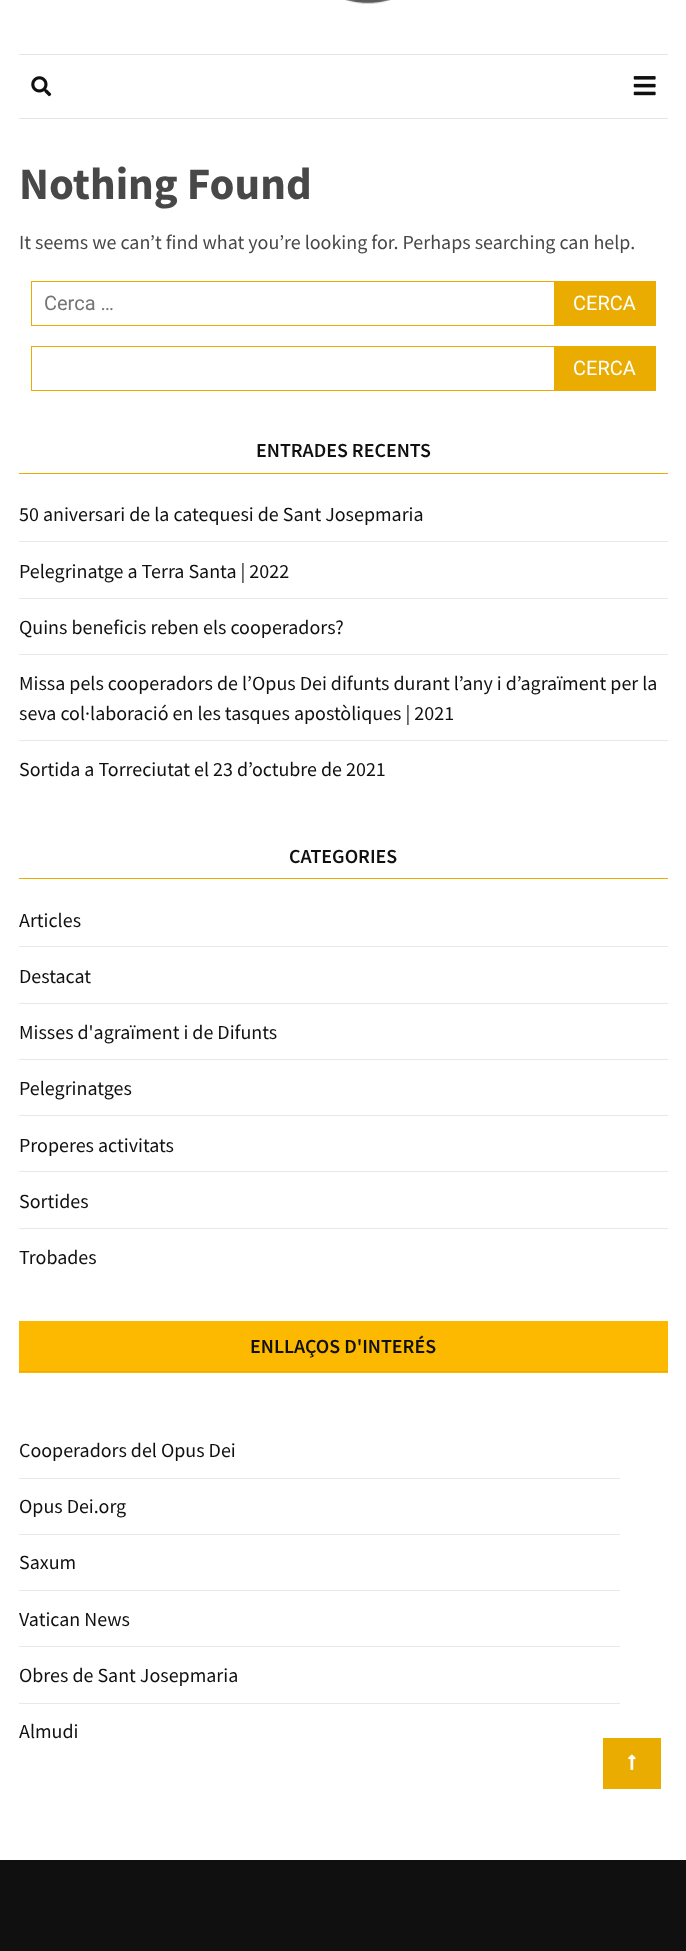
<!DOCTYPE html>
<meta charset="utf-8">
<style>body { margin: 0 } canvas { display: block }</style>
<canvas id="canvas" width="686" height="1951"></canvas>
<script type="module">
  const canvas = document.getElementById("canvas");
  const g = canvas.getContext("2d");
  g.miterLimit = 4;
  g.fontKerning = "normal";
  function drawText(s, x, y, [font, color]) {
    g.font = font;
    g.fillStyle = color;
    g.fillText(s, x, y);
  }
  function fillBox(x, y, w, h, color) {
    g.fillStyle = color;
    g.fillRect(x, y, w, h);
  }
  async function drawPicture(src, x, y, w, h) {
    const img = new Image();
    img.src = src;
    await img.decode();
    g.drawImage(img, x, y, w, h);
  }

  const s1 = ["bold 45px Source Sans Pro", "#484848"];
  const s2 = ["20px Source Sans Pro", "#484848"];
  const s3 = ["20px Roboto", "#757575"];
  const s4 = ["20px Roboto", "#FFFFFF"];
  const s5 = ["600 20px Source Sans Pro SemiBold", "#101010"];
  const s6 = ["20px Source Sans Pro", "#101010"];

  fillBox(0, 0, 686, 1951, "#FFFFFF");
  await drawPicture("pic1.png", 345, 0, 46, 4);
  fillBox(19, 54, 649, 1, "#E5E5E5");
  fillBox(19, 118, 649, 1, "#E5E5E5");
  await drawPicture("pic2.png", 31, 76, 21, 21);
  await drawPicture("pic3.png", 633, 76, 23, 20);
  drawText("Nothing Found", 19, 199, s1);
  drawText("It seems we can’t find what you’re looking for. Perhaps searching can help.", 19, 249, s2);
  g.strokeStyle = "#EAAC00";
  g.strokeRect(31.5, 281.5, 624, 44);
  drawText("Cerca …", 44, 310, s3);
  fillBox(554, 282, 101, 43, "#EAAC00");
  drawText("CERCA", 573, 310, s4);
  g.strokeRect(31.5, 346.5, 624, 44);
  fillBox(554, 347, 101, 43, "#EAAC00");
  drawText("CERCA", 573, 375, s4);
  fillBox(19, 473, 649, 1, "#EAAC00");
  drawText("ENTRADES RECENTS", 256, 457, s5);
  drawText("50 aniversari de la catequesi de Sant Josepmaria", 19, 521, s6);
  fillBox(19, 541, 649, 1, "#E8E8E8");
  drawText("Pelegrinatge a Terra Santa | 2022", 19, 578, s6);
  fillBox(19, 598, 649, 1, "#E8E8E8");
  drawText("Quins beneficis reben els cooperadors?", 19, 634, s6);
  fillBox(19, 654, 649, 1, "#E8E8E8");
  drawText("Missa pels cooperadors de l’Opus Dei difunts durant l’any i d’agraïment per la", 19, 690, s6);
  drawText("seva col·laboració en les tasques apostòliques | 2021", 19, 720, s6);
  fillBox(19, 740, 649, 1, "#E8E8E8");
  drawText("Sortida a Torreciutat el 23 d’octubre de 2021", 19, 776, s6);
  fillBox(19, 878, 649, 1, "#EAAC00");
  drawText("CATEGORIES", 289, 863, s5);
  drawText("Articles", 19, 927, s6);
  fillBox(19, 946, 649, 1, "#E8E8E8");
  drawText("Destacat", 19, 983, s6);
  fillBox(19, 1003, 649, 1, "#E8E8E8");
  drawText("Misses d'agraïment i de Difunts", 19, 1039, s6);
  fillBox(19, 1059, 649, 1, "#E8E8E8");
  drawText("Pelegrinatges", 19, 1095, s6);
  fillBox(19, 1115, 649, 1, "#E8E8E8");
  drawText("Properes activitats", 19, 1152, s6);
  fillBox(19, 1171, 649, 1, "#E8E8E8");
  drawText("Sortides", 19, 1208, s6);
  fillBox(19, 1228, 649, 1, "#E8E8E8");
  drawText("Trobades", 19, 1264, s6);
  fillBox(19, 1321, 649, 52, "#FCB900");
  fillBox(19, 1371, 649, 1, "#EAAC00");
  drawText("ENLLAÇOS D'INTERÉS", 250, 1353, s5);
  drawText("Cooperadors del Opus Dei", 19, 1457, s6);
  fillBox(19, 1478, 601, 1, "#E8E8E8");
  drawText("Opus Dei.org", 19, 1513, s6);
  fillBox(19, 1534, 601, 1, "#E8E8E8");
  drawText("Saxum", 19, 1569, s6);
  fillBox(19, 1590, 601, 1, "#E8E8E8");
  drawText("Vatican News", 19, 1626, s6);
  fillBox(19, 1646, 601, 1, "#E8E8E8");
  drawText("Obres de Sant Josepmaria", 19, 1682, s6);
  fillBox(19, 1703, 601, 1, "#E8E8E8");
  drawText("Almudi", 19, 1738, s6);
  fillBox(0, 1860, 686, 91, "#101010");
  fillBox(603, 1738, 58, 51, "#EAAC00");
  await drawPicture("pic4.png", 628, 1754, 8, 16);
</script>
